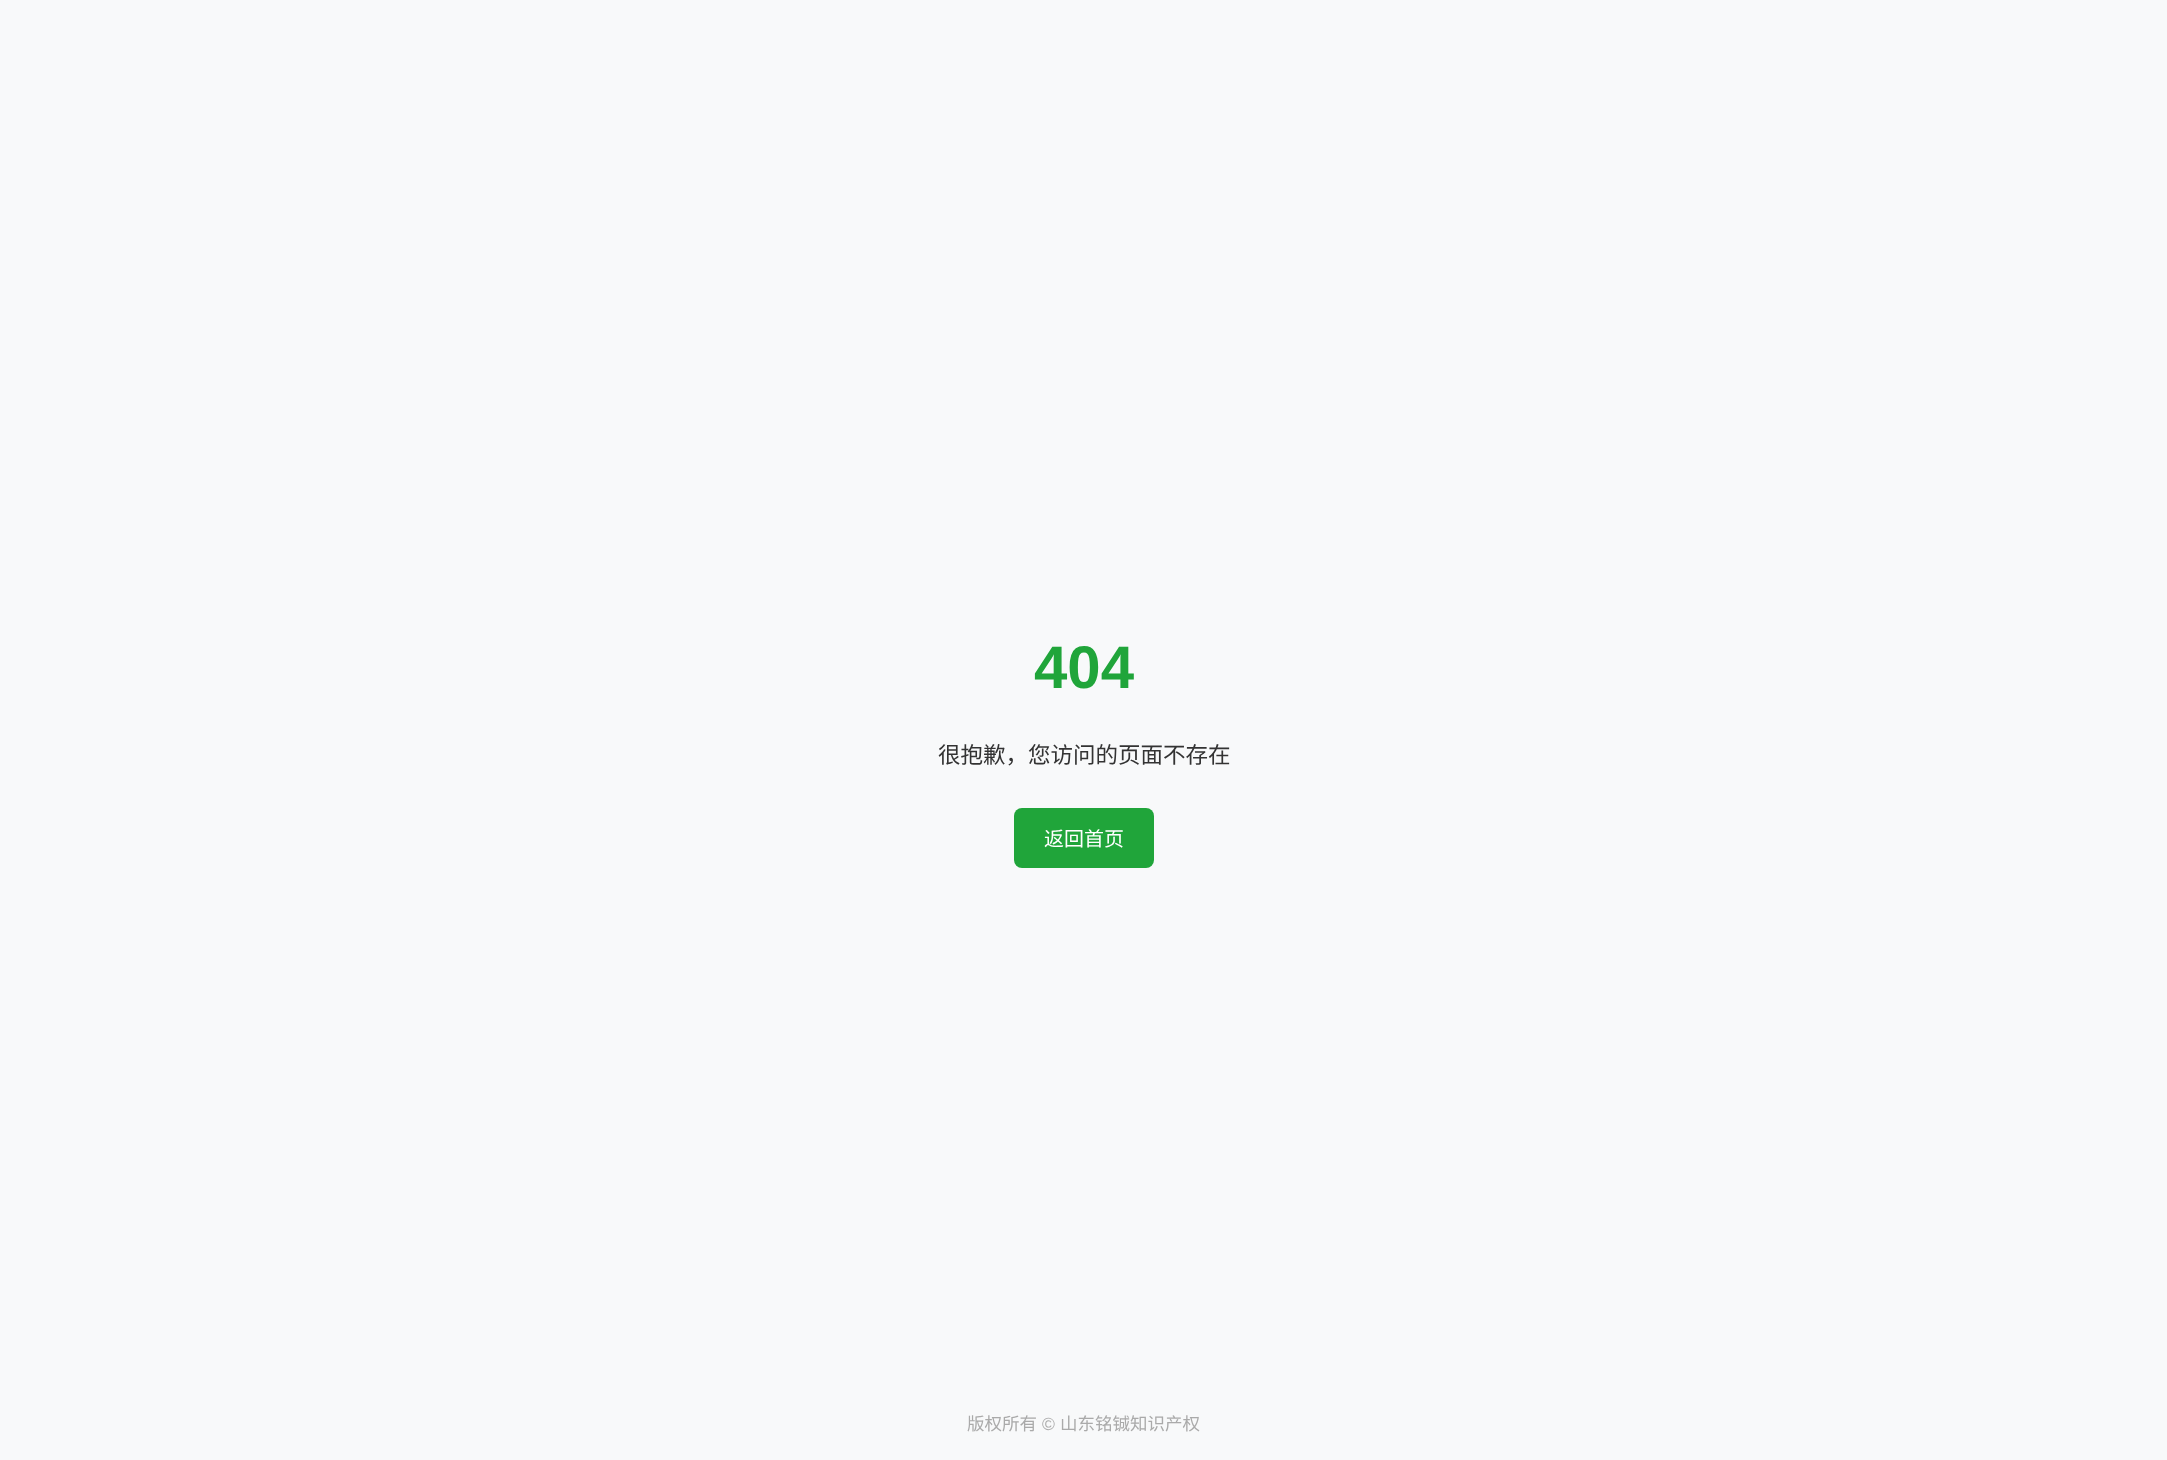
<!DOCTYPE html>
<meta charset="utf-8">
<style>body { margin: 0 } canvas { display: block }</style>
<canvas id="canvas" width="2167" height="1460"></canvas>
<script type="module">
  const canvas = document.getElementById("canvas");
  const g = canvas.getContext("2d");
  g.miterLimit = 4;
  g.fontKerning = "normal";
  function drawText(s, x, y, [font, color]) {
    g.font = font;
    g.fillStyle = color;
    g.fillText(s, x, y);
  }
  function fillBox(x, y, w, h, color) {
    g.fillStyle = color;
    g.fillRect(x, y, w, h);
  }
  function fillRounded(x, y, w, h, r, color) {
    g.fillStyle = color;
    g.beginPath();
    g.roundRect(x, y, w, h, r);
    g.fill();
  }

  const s1 = ["bold 60px Liberation Sans", "#20A53A"];
  const s2 = ["22.5px Noto Sans CJK SC", "#333333"];
  const s3 = ["20px Noto Sans CJK SC", "#FFFFFF"];
  const s4 = ["17.5px Noto Sans CJK SC", "#AAAAAA"];
  const s5 = ["17.5px Liberation Sans", "#AAAAAA"];

  fillBox(0, 0, 2167, 1460, "#F8F9FA");
  drawText("404", 1034, 688, s1);
  drawText("很抱歉，您访问的页面不存在", 938, 763, s2);
  fillRounded(1014, 808, 140, 60, 8, "#20A53A");
  drawText("返回首页", 1044, 846, s3);
  drawText("版权所有", 967, 1430, s4);
  drawText("©", 1042, 1430, s5);
  drawText("山东铭铖知识产权", 1060, 1430, s4);
</script>
